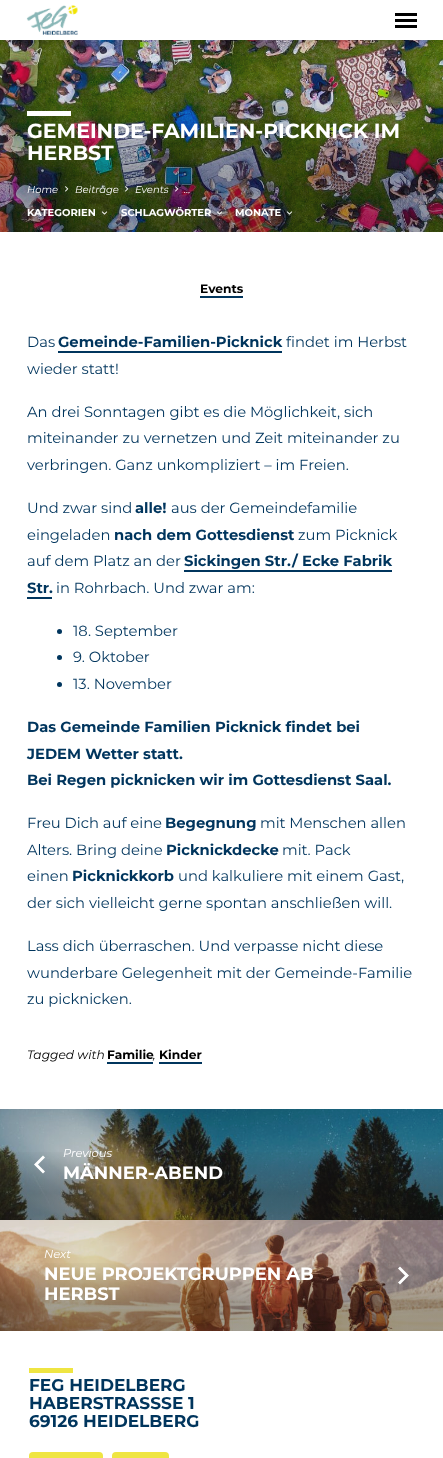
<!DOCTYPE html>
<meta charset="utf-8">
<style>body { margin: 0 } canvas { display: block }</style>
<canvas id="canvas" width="443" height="1458"></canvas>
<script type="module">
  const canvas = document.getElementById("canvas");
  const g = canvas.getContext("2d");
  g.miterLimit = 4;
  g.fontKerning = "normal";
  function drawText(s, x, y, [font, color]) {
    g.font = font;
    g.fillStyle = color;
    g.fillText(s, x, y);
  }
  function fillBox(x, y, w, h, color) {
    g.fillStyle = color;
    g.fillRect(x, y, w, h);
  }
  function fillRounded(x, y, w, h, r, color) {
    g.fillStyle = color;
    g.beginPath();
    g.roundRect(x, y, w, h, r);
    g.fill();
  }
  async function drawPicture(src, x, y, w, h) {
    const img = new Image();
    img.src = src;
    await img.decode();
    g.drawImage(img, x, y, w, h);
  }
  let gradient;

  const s1 = ["bold 20.5px Montserrat", "#FFFFFF"];
  const s2 = ["italic 10px Montserrat", "#FFFFFF"];
  const s3 = ["bold 10px Montserrat", "#FFFFFF"];
  const s4 = ["bold 12.25px Montserrat", "#000000"];
  const s5 = ["14.75px Montserrat", "#00355D"];
  const s6 = ["bold 14.75px Montserrat", "#00355D"];
  const s7 = ["italic 12.25px Montserrat", "#000000"];
  const s8 = ["italic 11.5px Montserrat", "#FFFFFF"];
  const s9 = ["bold 17.9px Montserrat", "#FFFFFF"];
  const s10 = ["bold 17px Montserrat", "#00355D"];

  fillBox(0, 0, 443, 1458, "#FFFFFF");
  await drawPicture("pic2.png", 0, 40, 443, 192);
  g.fillStyle = "rgba(0, 0, 0, 0.15)";
  g.filter = "blur(6px)";
  g.beginPath();
  g.rect(0, 2, 443, 40);
  g.fill();
  g.filter = "none";
  fillBox(0, 0, 443, 40, "#FFFFFF");
  await drawPicture("pic1.png", 26, 5, 52, 30);
  fillBox(395, 13, 22, 3, "#000000");
  fillBox(395, 19, 22, 3, "#000000");
  fillBox(395, 25, 22, 3, "#000000");
  gradient = g.createLinearGradient(222, 0, 222, 232);
  gradient.addColorStop(0, "rgba(0, 0, 0, 0)");
  gradient.addColorStop(0.36, "rgba(0, 0, 0, 0)");
  gradient.addColorStop(0.76, "rgba(0, 0, 0, 0.28)");
  gradient.addColorStop(1, "rgba(0, 0, 0, 0.28)");
  g.fillStyle = gradient;
  g.fillRect(0, 91, 443, 141);
  fillBox(27, 111, 44, 5, "#FFFFFF");
  drawText("GEMEINDE-FAMILIEN-PICKNICK IM", 27, 138, s1);
  drawText("HERBST", 27, 160, s1);
  drawText("Home", 27, 193, s2);
  await drawPicture("pic3.png", 65, 186, 4, 6);
  drawText("Beiträge", 75, 193, s2);
  await drawPicture("pic4.png", 125, 186, 4, 6);
  drawText("Events", 135, 193, s2);
  await drawPicture("pic5.png", 175, 186, 4, 6);
  drawText("…", 184, 193, s2);
  drawText("KATEGORIEN", 27, 216, s3);
  await drawPicture("pic6.png", 101, 211, 7, 4);
  drawText("SCHLAGWÖRTER", 121, 216, s3);
  await drawPicture("pic7.png", 216, 211, 7, 4);
  drawText("MONATE", 235, 216, s3);
  await drawPicture("pic8.png", 286, 211, 7, 4);
  drawText("Events", 200, 293, s4);
  fillBox(200, 296, 43, 2, "#00355D");
  drawText("Das", 27, 347, s5);
  drawText("Gemeinde-Familien-Picknick", 58, 347, s6);
  fillBox(58, 351, 224, 2, "#00355D");
  drawText("findet im Herbst", 286, 347, s5);
  drawText("wieder statt!", 27, 374, s5);
  drawText("An drei Sonntagen gibt es die Möglichkeit, sich", 27, 417, s5);
  drawText("miteinander zu vernetzen und Zeit miteinander zu", 27, 443, s5);
  drawText("verbringen. Ganz unkompliziert – im Freien.", 27, 470, s5);
  drawText("Und zwar sind", 27, 513, s5);
  drawText("alle!", 135, 513, s6);
  drawText("aus der Gemeindefamilie", 171, 513, s5);
  drawText("eingeladen", 27, 540, s5);
  drawText("nach dem Gottesdienst", 114, 540, s6);
  drawText("zum Picknick", 298, 540, s5);
  drawText("auf dem Platz an der", 27, 566, s5);
  drawText("Sickingen Str./ Ecke Fabrik", 184, 566, s6);
  fillBox(184, 570, 208, 2, "#00355D");
  drawText("Str.", 27, 593, s6);
  fillBox(27, 597, 25, 2, "#00355D");
  drawText("in Rohrbach. Und zwar am:", 56, 593, s5);
  g.beginPath();
  g.arc(59.5, 631.5, 2.5, 0, Math.PI * 2);
  g.fill();
  drawText("18. September", 73, 636, s5);
  g.beginPath();
  g.arc(59.5, 657.5, 2.5, 0, Math.PI * 2);
  g.fill();
  drawText("9. Oktober", 73, 662, s5);
  g.beginPath();
  g.arc(59.5, 684.5, 2.5, 0, Math.PI * 2);
  g.fill();
  drawText("13. November", 73, 689, s5);
  drawText("Das Gemeinde Familien Picknick findet bei", 27, 732, s6);
  drawText("JEDEM Wetter statt.", 27, 759, s6);
  drawText("Bei Regen picknicken wir im Gottesdienst Saal.", 27, 785, s6);
  drawText("Freu Dich auf eine", 27, 828, s5);
  drawText("Begegnung", 165, 828, s6);
  drawText("mit Menschen allen", 260, 828, s5);
  drawText("Alters. Bring deine", 27, 855, s5);
  drawText("Picknickdecke", 166, 855, s6);
  drawText("mit. Pack", 282, 855, s5);
  drawText("einen", 27, 881, s5);
  drawText("Picknickkorb", 72, 881, s6);
  drawText("und kalkuliere mit einem Gast,", 178, 881, s5);
  drawText("der sich vielleicht gerne spontan anschließen will.", 27, 908, s5);
  drawText("Lass dich überraschen. Und verpasse nicht diese", 27, 951, s5);
  drawText("wunderbare Gelegenheit mit der Gemeinde-Familie", 27, 978, s5);
  drawText("zu picknicken.", 27, 1004, s5);
  drawText("Tagged with", 27, 1059, s7);
  drawText("Familie", 107, 1059, s4);
  fillBox(107, 1062, 46, 2, "#00355D");
  drawText(",", 153, 1059, s7);
  drawText("Kinder", 159, 1059, s4);
  fillBox(159, 1062, 43, 2, "#00355D");
  await drawPicture("pic9.png", 0, 1109, 443, 111);
  gradient = g.createLinearGradient(224, 1109, 224, 1220);
  gradient.addColorStop(0, "rgba(6, 6, 6, 0)");
  gradient.addColorStop(0.36, "rgba(6, 6, 6, 0)");
  gradient.addColorStop(0.76, "rgba(6, 6, 6, 0.28)");
  gradient.addColorStop(1, "rgba(6, 6, 6, 0.28)");
  g.fillStyle = gradient;
  g.fillRect(0, 1152, 443, 68);
  g.fillStyle = "#FFFFFF";
  g.beginPath();
  g.moveTo(45, 1171.5);
  g.lineTo(38, 1164.5);
  g.lineTo(45, 1157.5);
  g.lineTo(43, 1155.5);
  g.lineTo(34, 1164.5);
  g.lineTo(43, 1173.5);
  g.closePath();
  g.fill();
  drawText("Previous", 63, 1157, s8);
  drawText("MÄNNER-ABEND", 63, 1179, s9);
  await drawPicture("pic10.png", 0, 1220, 443, 111);
  gradient = g.createLinearGradient(224, 1220, 224, 1331);
  gradient.addColorStop(0, "rgba(6, 6, 6, 0)");
  gradient.addColorStop(0.36, "rgba(6, 6, 6, 0)");
  gradient.addColorStop(0.76, "rgba(6, 6, 6, 0.28)");
  gradient.addColorStop(1, "rgba(6, 6, 6, 0.28)");
  g.fillStyle = gradient;
  g.fillRect(0, 1263, 443, 68);
  drawText("Next", 44, 1258, s8);
  drawText("NEUE PROJEKTGRUPPEN AB", 44, 1280, s9);
  drawText("HERBST", 44, 1300, s9);
  g.beginPath();
  g.moveTo(398, 1282.5);
  g.lineTo(405, 1275.5);
  g.lineTo(398, 1268.5);
  g.lineTo(400, 1266.5);
  g.lineTo(409, 1275.5);
  g.lineTo(400, 1284.5);
  g.closePath();
  g.fill();
  fillBox(29, 1368, 44, 5, "#EFE542");
  drawText("FEG HEIDELBERG", 29, 1391, s10);
  drawText("HABERSTRASSSE 1", 29, 1409, s10);
  drawText("69126 HEIDELBERG", 29, 1427, s10);
  fillRounded(29, 1452, 74, 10, 4, "#EFE542");
  fillRounded(112, 1452, 57, 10, 4, "#EFE542");
</script>
